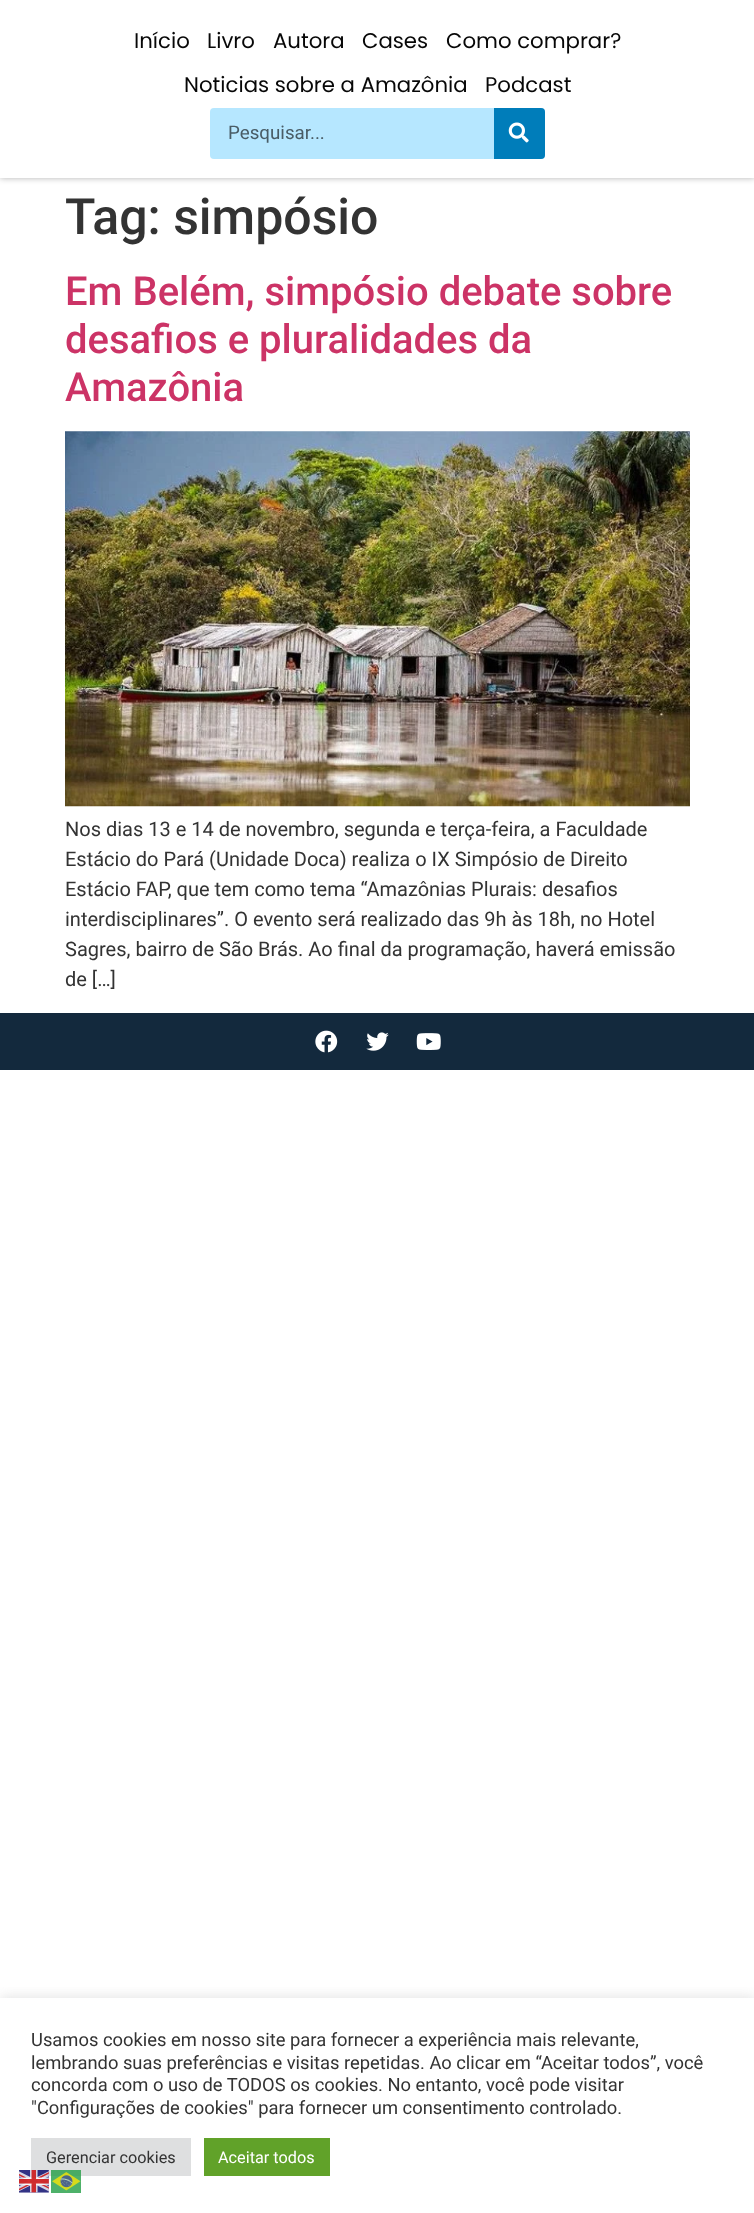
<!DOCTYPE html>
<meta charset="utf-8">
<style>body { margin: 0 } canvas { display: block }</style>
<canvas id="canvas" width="754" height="2213"></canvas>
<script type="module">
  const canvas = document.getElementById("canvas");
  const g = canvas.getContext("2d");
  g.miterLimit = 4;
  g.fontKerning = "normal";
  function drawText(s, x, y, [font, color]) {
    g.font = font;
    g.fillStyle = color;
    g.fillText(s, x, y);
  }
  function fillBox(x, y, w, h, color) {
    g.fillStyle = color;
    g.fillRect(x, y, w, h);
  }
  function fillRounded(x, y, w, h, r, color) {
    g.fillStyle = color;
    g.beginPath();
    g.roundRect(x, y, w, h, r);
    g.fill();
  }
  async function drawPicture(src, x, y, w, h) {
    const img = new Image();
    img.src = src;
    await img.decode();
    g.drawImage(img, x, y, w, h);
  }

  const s1 = ["21.25px Poppins", "#070707"];
  const s2 = ["18.75px Roboto", "#495C66"];
  const s3 = ["500 50px Roboto", "#333333"];
  const s4 = ["500 40px Roboto", "#CC3366"];
  const s5 = ["20px Roboto", "#333333"];
  const s6 = ["18.35px Roboto", "#333333"];
  const s7 = ["16.25px Roboto", "#333333"];
  const s8 = ["16.25px Roboto", "#FFFFFF"];

  fillBox(0, 0, 754, 2213, "#FFFFFF");
  g.save();
  g.beginPath();
  g.moveTo(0, 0);
  g.lineTo(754, 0);
  g.lineTo(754, 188);
  g.lineTo(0, 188);
  g.closePath();
  g.moveTo(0, 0);
  g.lineTo(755, 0);
  g.lineTo(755, 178);
  g.lineTo(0, 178);
  g.closePath();
  g.clip("evenodd");
  g.fillStyle = "rgba(0, 0, 0, 0.3)";
  g.filter = "blur(3px)";
  g.beginPath();
  g.rect(0, 0, 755, 178);
  g.fill();
  g.filter = "none";
  g.restore();
  fillBox(0, 177, 754, 1, "rgba(255, 255, 255, 0.87)");
  drawText("Início", 134, 48, s1);
  drawText("Livro", 207, 48, s1);
  drawText("Autora", 273, 48, s1);
  drawText("Cases", 362, 48, s1);
  drawText("Como comprar?", 446, 48, s1);
  drawText("Noticias sobre a Amazônia", 184, 92, s1);
  drawText("Podcast", 485, 92, s1);
  fillRounded(210, 108, 335, 51, 4, "#B6E7FF");
  drawText("Pesquisar...", 228, 139, s2);
  g.fillStyle = "#007DBA";
  g.beginPath();
  g.roundRect(494, 108, 51, 51, [0, 4, 4, 0]);
  g.fill();
  await drawPicture("pic1.png", 508, 122, 21, 21);
  drawText("Tag: simpósio", 65, 234, s3);
  drawText("Em Belém, simpósio debate sobre", 65, 305, s4);
  drawText("desafios e pluralidades da", 65, 353, s4);
  drawText("Amazônia", 65, 401, s4);
  await drawPicture("pic2.png", 65, 431, 625, 376);
  drawText("Nos dias 13 e 14 de novembro, segunda e terça-feira, a Faculdade", 65, 836, s5);
  drawText("Estácio do Pará (Unidade Doca) realiza o IX Simpósio de Direito", 65, 866, s5);
  drawText("Estácio FAP, que tem como tema “Amazônias Plurais: desafios", 65, 896, s5);
  drawText("interdisciplinares”. O evento será realizado das 9h às 18h, no Hotel", 65, 926, s5);
  drawText("Sagres, bairro de São Brás. Ao final da programação, haverá emissão", 65, 956, s5);
  drawText("de […]", 65, 986, s5);
  fillBox(0, 1013, 754, 57, "#13293D");
  await drawPicture("pic3.png", 315, 1030, 23, 23);
  await drawPicture("pic4.png", 366, 1032, 23, 19);
  await drawPicture("pic5.png", 416, 1033, 25, 17);
  g.save();
  g.beginPath();
  g.rect(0, 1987, 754, 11);
  g.clip();
  g.fillStyle = "rgba(172, 171, 171, 0.3)";
  g.filter = "blur(6px)";
  g.beginPath();
  g.rect(0, 1996, 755, 217);
  g.fill();
  g.filter = "none";
  g.restore();
  drawText("Usamos cookies em nosso site para fornecer a experiência mais relevante,", 31, 2046, s6);
  drawText("lembrando suas preferências e visitas repetidas. Ao clicar em “Aceitar todos”, você", 31, 2069, s6);
  drawText("concorda com o uso de TODOS os cookies. No entanto, você pode visitar", 31, 2091, s6);
  drawText("\"Configurações de cookies\" para fornecer um consentimento controlado.", 31, 2114, s6);
  fillBox(31, 2138, 160, 38, "#DEDFE0");
  drawText("Gerenciar cookies", 46, 2163, s7);
  fillBox(204, 2138, 126, 38, "#61A229");
  drawText("Aceitar todos", 218, 2163, s8);
  await drawPicture("pic6.png", 19, 2170, 30, 23);
  await drawPicture("pic7.png", 51, 2170, 30, 23);
</script>
